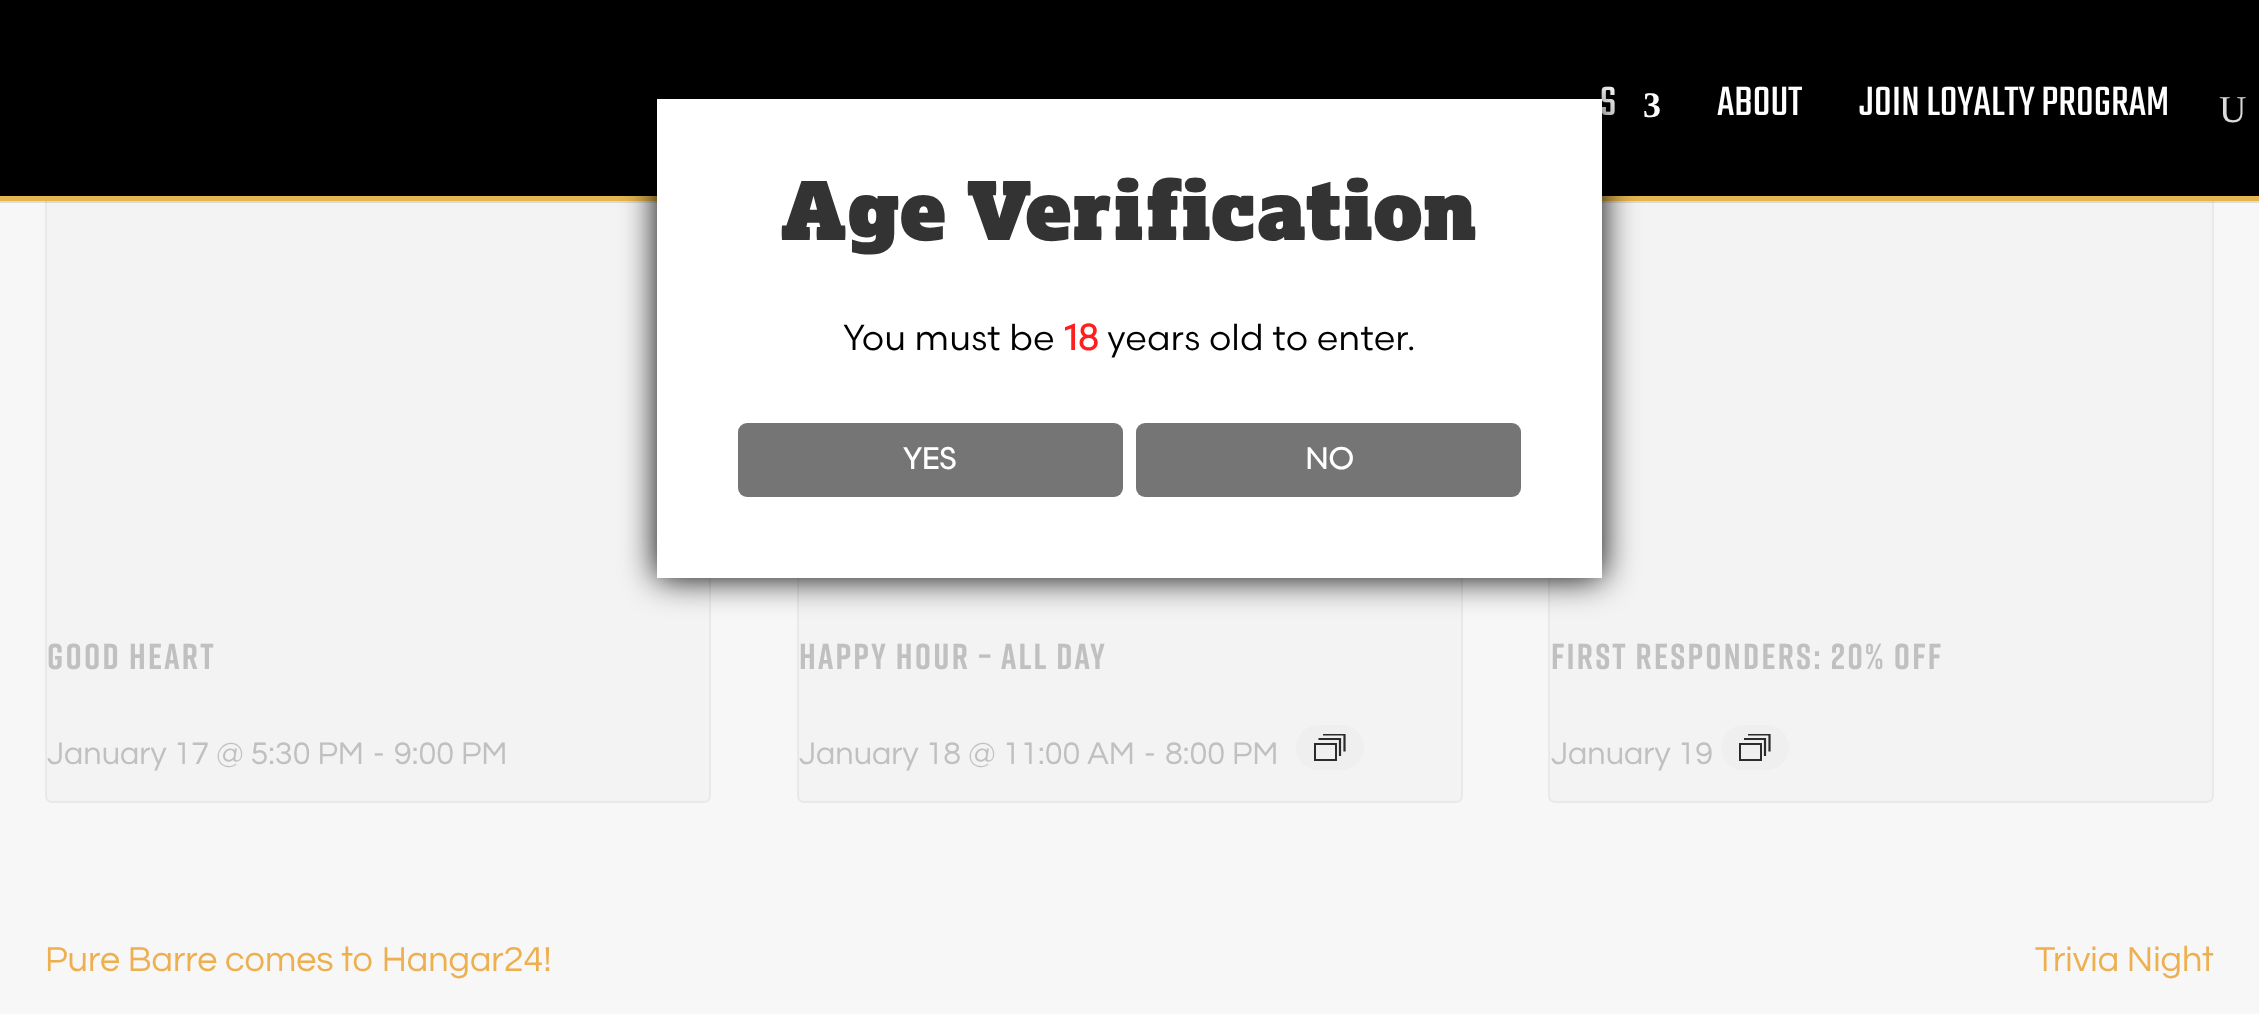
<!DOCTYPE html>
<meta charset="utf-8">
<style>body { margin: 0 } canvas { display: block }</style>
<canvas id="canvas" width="2259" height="1014"></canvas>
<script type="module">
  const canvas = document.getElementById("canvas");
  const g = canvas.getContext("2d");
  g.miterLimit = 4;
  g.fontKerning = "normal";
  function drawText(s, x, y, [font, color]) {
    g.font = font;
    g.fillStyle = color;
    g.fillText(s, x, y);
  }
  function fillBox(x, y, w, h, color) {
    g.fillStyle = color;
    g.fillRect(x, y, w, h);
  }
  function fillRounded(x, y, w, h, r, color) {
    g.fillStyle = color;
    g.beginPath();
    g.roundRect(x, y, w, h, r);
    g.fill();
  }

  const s1 = ["300 45px Teko", "#FFFFFF"];
  const s2 = ["bold 36px Liberation Serif", "#FFFFFF"];
  const s3 = ["38px Liberation Serif", "#DBDBDB"];
  const s4 = ["bold 36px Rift", "#C0C0C0"];
  const s5 = ["32.4px Questrial", "#C0C0C0"];
  const s6 = ["36px Questrial", "#EEAF4F"];
  const s7 = ["900 81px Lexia", "#333333"];
  const s8 = ["36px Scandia", "#000000"];
  const s9 = ["bold 36px Scandia", "#FF1F1F"];
  const s10 = ["bold 30px Scandia", "#FFFFFF"];

  fillBox(0, 0, 2259, 1014, "#F7F7F7");
  g.fillStyle = "#F3F3F3";
  g.beginPath();
  g.roundRect(46, 93, 664, 709, 6);
  g.fill();
  g.strokeStyle = "#E9E9E9";
  g.lineWidth = 2;
  g.stroke();
  g.beginPath();
  g.roundRect(798, 93, 664, 709, 6);
  g.fill();
  g.stroke();
  g.beginPath();
  g.roundRect(1549, 93, 664, 709, 6);
  g.fill();
  g.stroke();
  fillBox(0, 201, 2259, 2, "rgba(0, 0, 0, 0.1)");
  fillBox(0, 0, 2259, 196, "#000000");
  fillBox(0, 196, 2259, 5, "#E6B54D");
  drawText("S", 1600, 115, s1);
  drawText("3", 1643, 117, s2);
  drawText("ABOUT", 1717, 115, s1);
  drawText("JOIN LOYALTY PROGRAM", 1859, 115, s1);
  drawText("U", 2219, 122, s3);
  g.letterSpacing = "2.25px";
  drawText("Good Heart", 47, 669, s4);
  g.letterSpacing = "0px";
  drawText("January 17 @ 5:30 PM", 47, 764, s5);
  drawText("-", 373, 764, s5);
  drawText("9:00 PM", 394, 764, s5);
  g.letterSpacing = "2.25px";
  drawText("Happy Hour – ALL DAY", 799, 669, s4);
  g.letterSpacing = "0px";
  drawText("January 18 @ 11:00 AM", 799, 764, s5);
  drawText("-", 1144, 764, s5);
  drawText("8:00 PM", 1165, 764, s5);
  fillRounded(1296, 725, 68, 45, 22.5, "#F0EFEF");
  g.strokeStyle = "#2B2B2B";
  g.strokeRect(1315, 744, 21, 16);
  g.beginPath();
  g.moveTo(1318.5, 739);
  g.lineTo(1340, 739);
  g.lineTo(1340, 756);
  g.lineWidth = 2.2;
  g.stroke();
  g.save();
  g.beginPath();
  g.rect(1314, 734, 32, 27);
  g.clip();
  g.beginPath();
  g.moveTo(1323, 734.5);
  g.lineTo(1344.5, 734.5);
  g.lineTo(1344.5, 751.5);
  g.stroke();
  g.restore();
  g.letterSpacing = "2.25px";
  drawText("First Responders: 20% OFF", 1551, 669, s4);
  g.letterSpacing = "0px";
  drawText("January 19", 1551, 764, s5);
  fillRounded(1721, 725, 68, 45, 22.5, "#F0EFEF");
  g.lineWidth = 2;
  g.strokeRect(1740, 744, 21, 16);
  g.beginPath();
  g.moveTo(1744, 739);
  g.lineTo(1765, 739);
  g.lineTo(1765, 756);
  g.lineWidth = 2.2;
  g.stroke();
  g.save();
  g.beginPath();
  g.rect(1739, 734, 32, 27);
  g.clip();
  g.beginPath();
  g.moveTo(1748, 734.5);
  g.lineTo(1769.5, 734.5);
  g.lineTo(1769.5, 751.5);
  g.stroke();
  g.restore();
  drawText("Pure Barre comes to Hangar24!", 45, 971, s6);
  drawText("Trivia Night", 2035, 971, s6);
  g.fillStyle = "#000000";
  g.filter = "blur(17px)";
  g.beginPath();
  g.rect(657, 99, 945, 479);
  g.fill();
  g.filter = "none";
  fillBox(657, 99, 945, 479, "#FFFFFF");
  g.letterSpacing = "2.25px";
  drawText("Age Verification", 780, 240, s7);
  g.letterSpacing = "0px";
  drawText("You must be", 843, 350, s8);
  drawText("18", 1064, 350, s9);
  drawText("years old to enter.", 1107, 350, s8);
  fillRounded(738, 423, 385, 74, 9, "#757575");
  drawText("YES", 903, 469, s10);
  fillRounded(1136, 423, 385, 74, 9, "#757575");
  drawText("NO", 1305, 469, s10);
</script>
